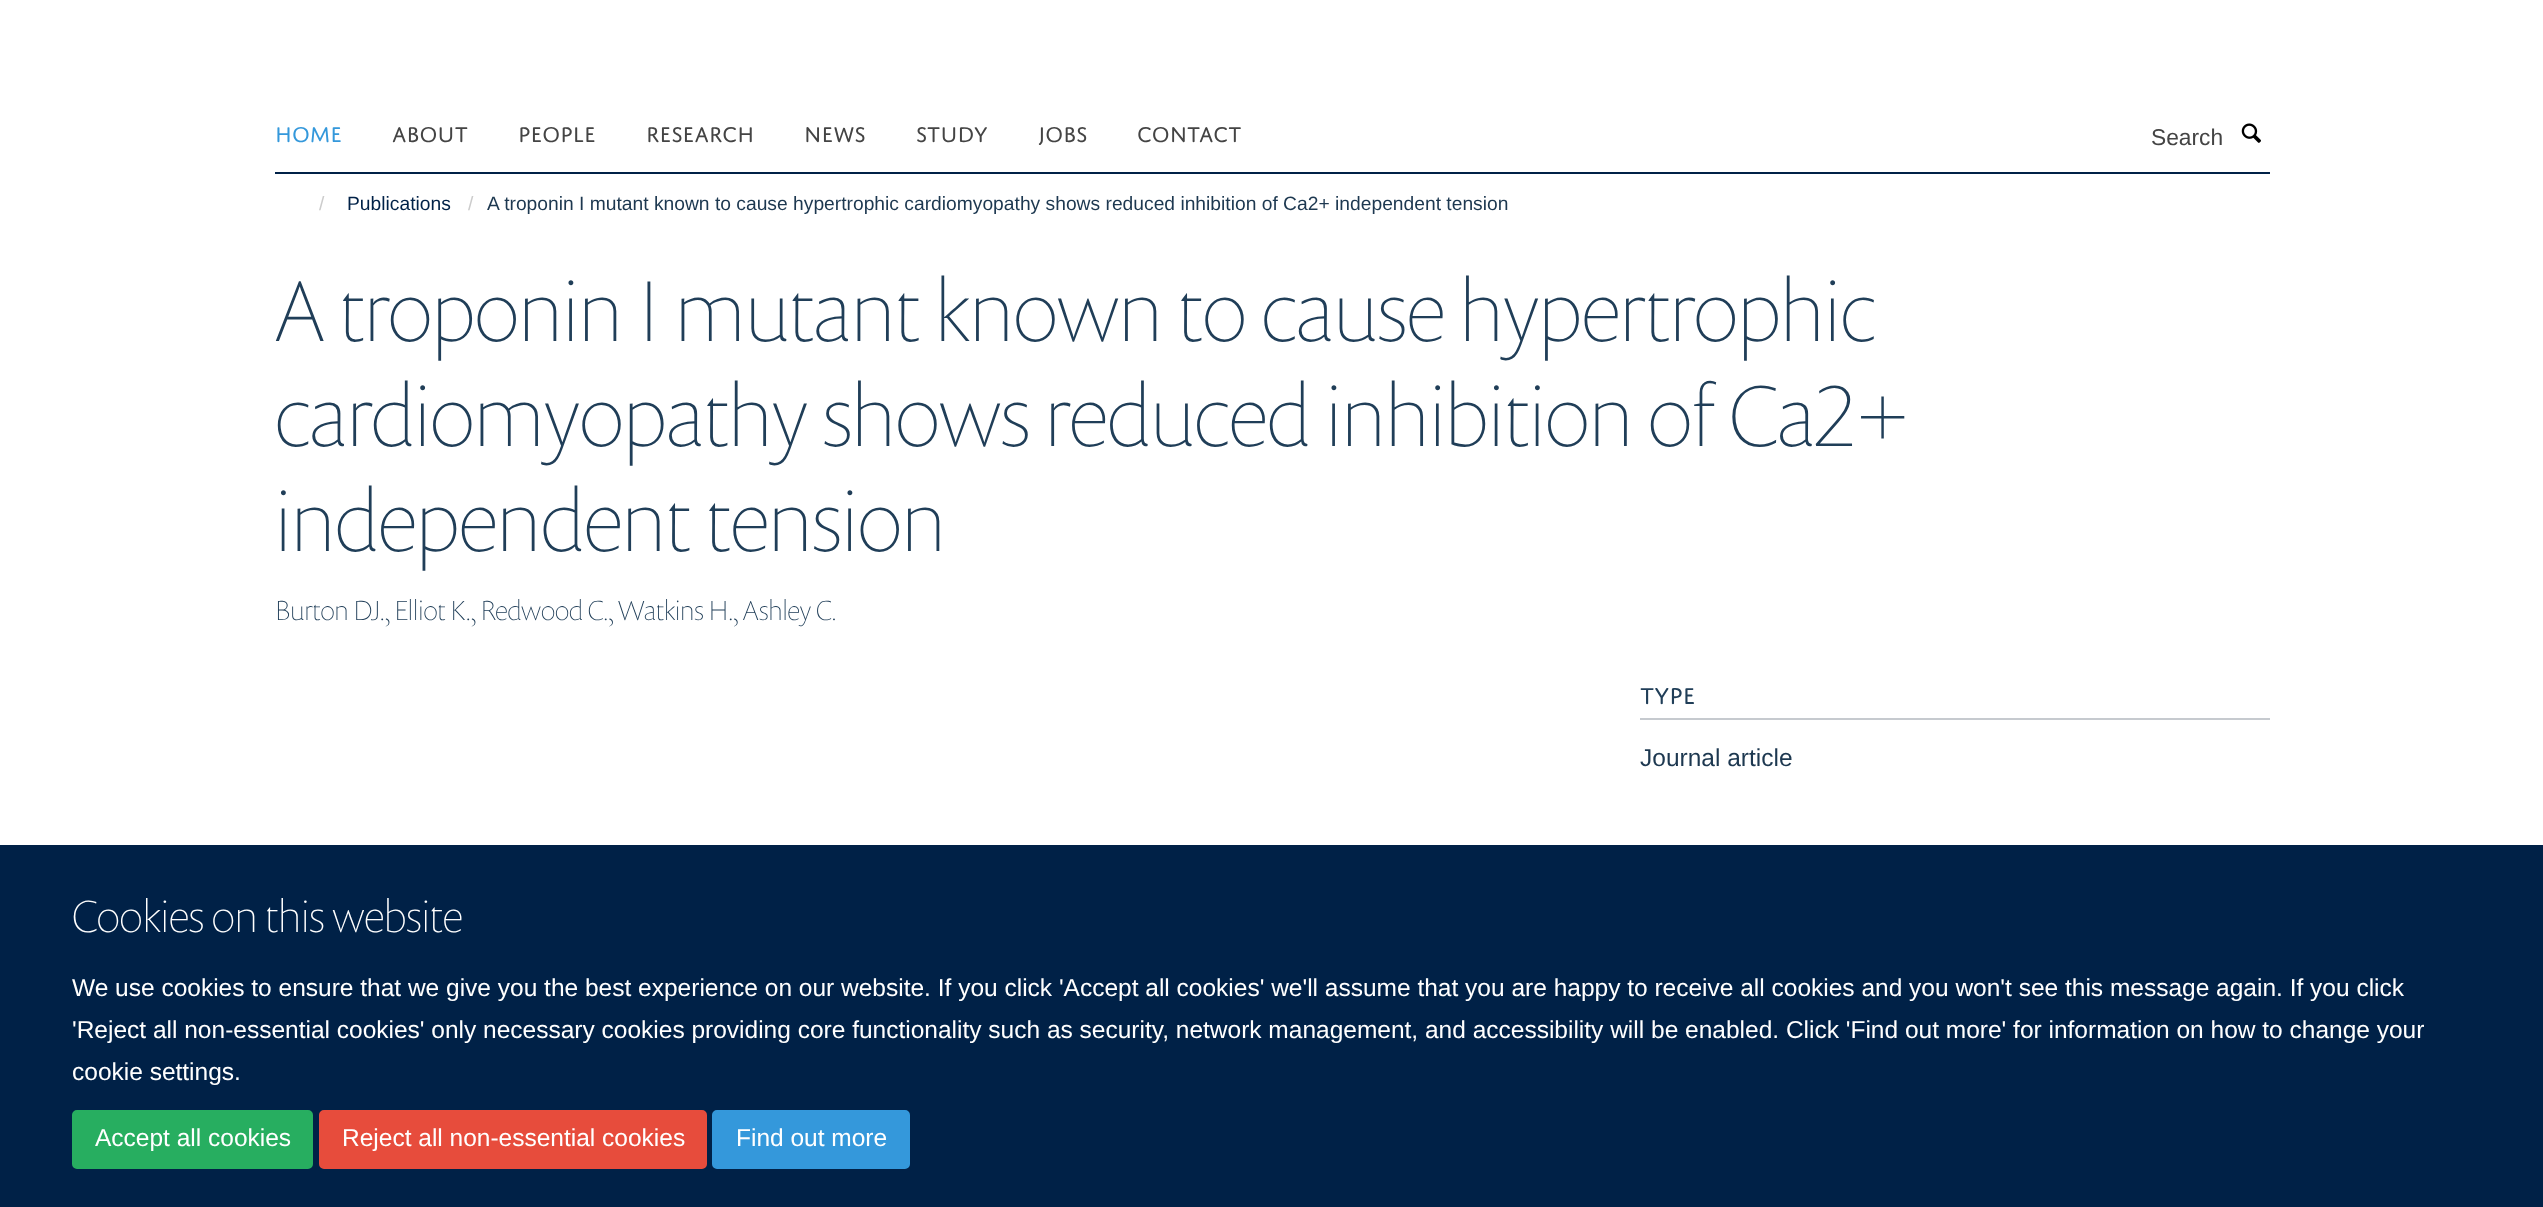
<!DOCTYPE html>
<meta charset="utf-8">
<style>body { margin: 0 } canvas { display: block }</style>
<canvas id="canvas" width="2543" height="1207"></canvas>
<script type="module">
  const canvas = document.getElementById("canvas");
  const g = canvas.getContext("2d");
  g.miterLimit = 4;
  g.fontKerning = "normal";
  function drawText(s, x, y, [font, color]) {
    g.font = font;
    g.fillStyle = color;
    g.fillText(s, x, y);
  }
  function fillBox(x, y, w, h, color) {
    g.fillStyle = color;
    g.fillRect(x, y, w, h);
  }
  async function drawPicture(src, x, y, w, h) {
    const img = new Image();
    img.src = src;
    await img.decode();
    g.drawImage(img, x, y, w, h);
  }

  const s1 = ["22.75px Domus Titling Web", "#3498DB"];
  const s2 = ["22.75px Domus Titling Web", "#444444"];
  const s3 = ["22.75px Liberation Sans", "#444444"];
  const s4 = ["19.25px Liberation Sans", "#CCCCCC"];
  const s5 = ["19.25px Liberation Sans", "#002147"];
  const s6 = ["19.25px Liberation Sans", "#1D3850"];
  const s7 = ["100 87.5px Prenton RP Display", "#203E58"];
  const s8 = ["100 28px Prenton RP Display", "#203E58"];
  const s9 = ["24.5px Domus Titling Web", "#203E58"];
  const s10 = ["24.5px Liberation Sans", "#1D3850"];
  const s11 = ["100 45.5px Prenton RP Display", "#FFFFFF"];
  const s12 = ["24.5px Liberation Sans", "#FFFFFF"];

  fillBox(0, 0, 2543, 1207, "#FFFFFF");
  fillBox(275, 172, 1995, 2, "#002147");
  drawText("HOME", 275, 142, s1);
  drawText("ABOUT", 392, 142, s2);
  drawText("PEOPLE", 518, 142, s2);
  drawText("RESEARCH", 646, 142, s2);
  drawText("NEWS", 804, 142, s2);
  drawText("STUDY", 916, 142, s2);
  drawText("JOBS", 1038, 142, s2);
  drawText("CONTACT", 1137, 142, s2);
  drawText("Search", 2151, 145, s3);
  await drawPicture("pic1.png", 2241, 123, 20, 20);
  drawText("/", 319, 210, s4);
  drawText("Publications", 347, 210, s5);
  drawText("/", 468, 210, s4);
  drawText("A troponin I mutant known to cause hypertrophic cardiomyopathy shows reduced inhibition of Ca2+ independent tension", 487, 210, s6);
  drawText("A troponin I mutant known to cause hypertrophic", 275, 341, s7);
  drawText("cardiomyopathy shows reduced inhibition of Ca2+", 275, 446, s7);
  drawText("independent tension", 275, 551, s7);
  drawText("Burton DJ., Elliot K., Redwood C., Watkins H., Ashley C.", 275, 620, s8);
  fillBox(1640, 718, 630, 2, "#C6CACF");
  drawText("TYPE", 1640, 704, s9);
  drawText("Journal article", 1640, 766, s10);
  fillBox(0, 845, 2543, 362, "#002147");
  drawText("Cookies on this website", 72, 932, s11);
  drawText("We use cookies to ensure that we give you the best experience on our website. If you click 'Accept all cookies' we'll assume that you are happy to receive all cookies and you won't see this message again. If you click", 72, 996, s12);
  drawText("'Reject all non-essential cookies' only necessary cookies providing core functionality such as security, network management, and accessibility will be enabled. Click 'Find out more' for information on how to change your", 72, 1038, s12);
  drawText("cookie settings.", 72, 1080, s12);
  g.fillStyle = "#27AE60";
  g.beginPath();
  g.roundRect(73, 1111, 239, 57, 4);
  g.fill();
  g.strokeStyle = "#27AE60";
  g.lineWidth = 2;
  g.stroke();
  drawText("Accept all cookies", 95, 1146, s12);
  g.fillStyle = "#E74C3C";
  g.beginPath();
  g.roundRect(320, 1111, 386, 57, 4);
  g.fill();
  g.strokeStyle = "#E74C3C";
  g.stroke();
  drawText("Reject all non-essential cookies", 342, 1146, s12);
  g.fillStyle = "#3498DB";
  g.beginPath();
  g.roundRect(713, 1111, 196, 57, 4);
  g.fill();
  g.strokeStyle = "#3498DB";
  g.stroke();
  drawText("Find out more", 736, 1146, s12);
</script>
